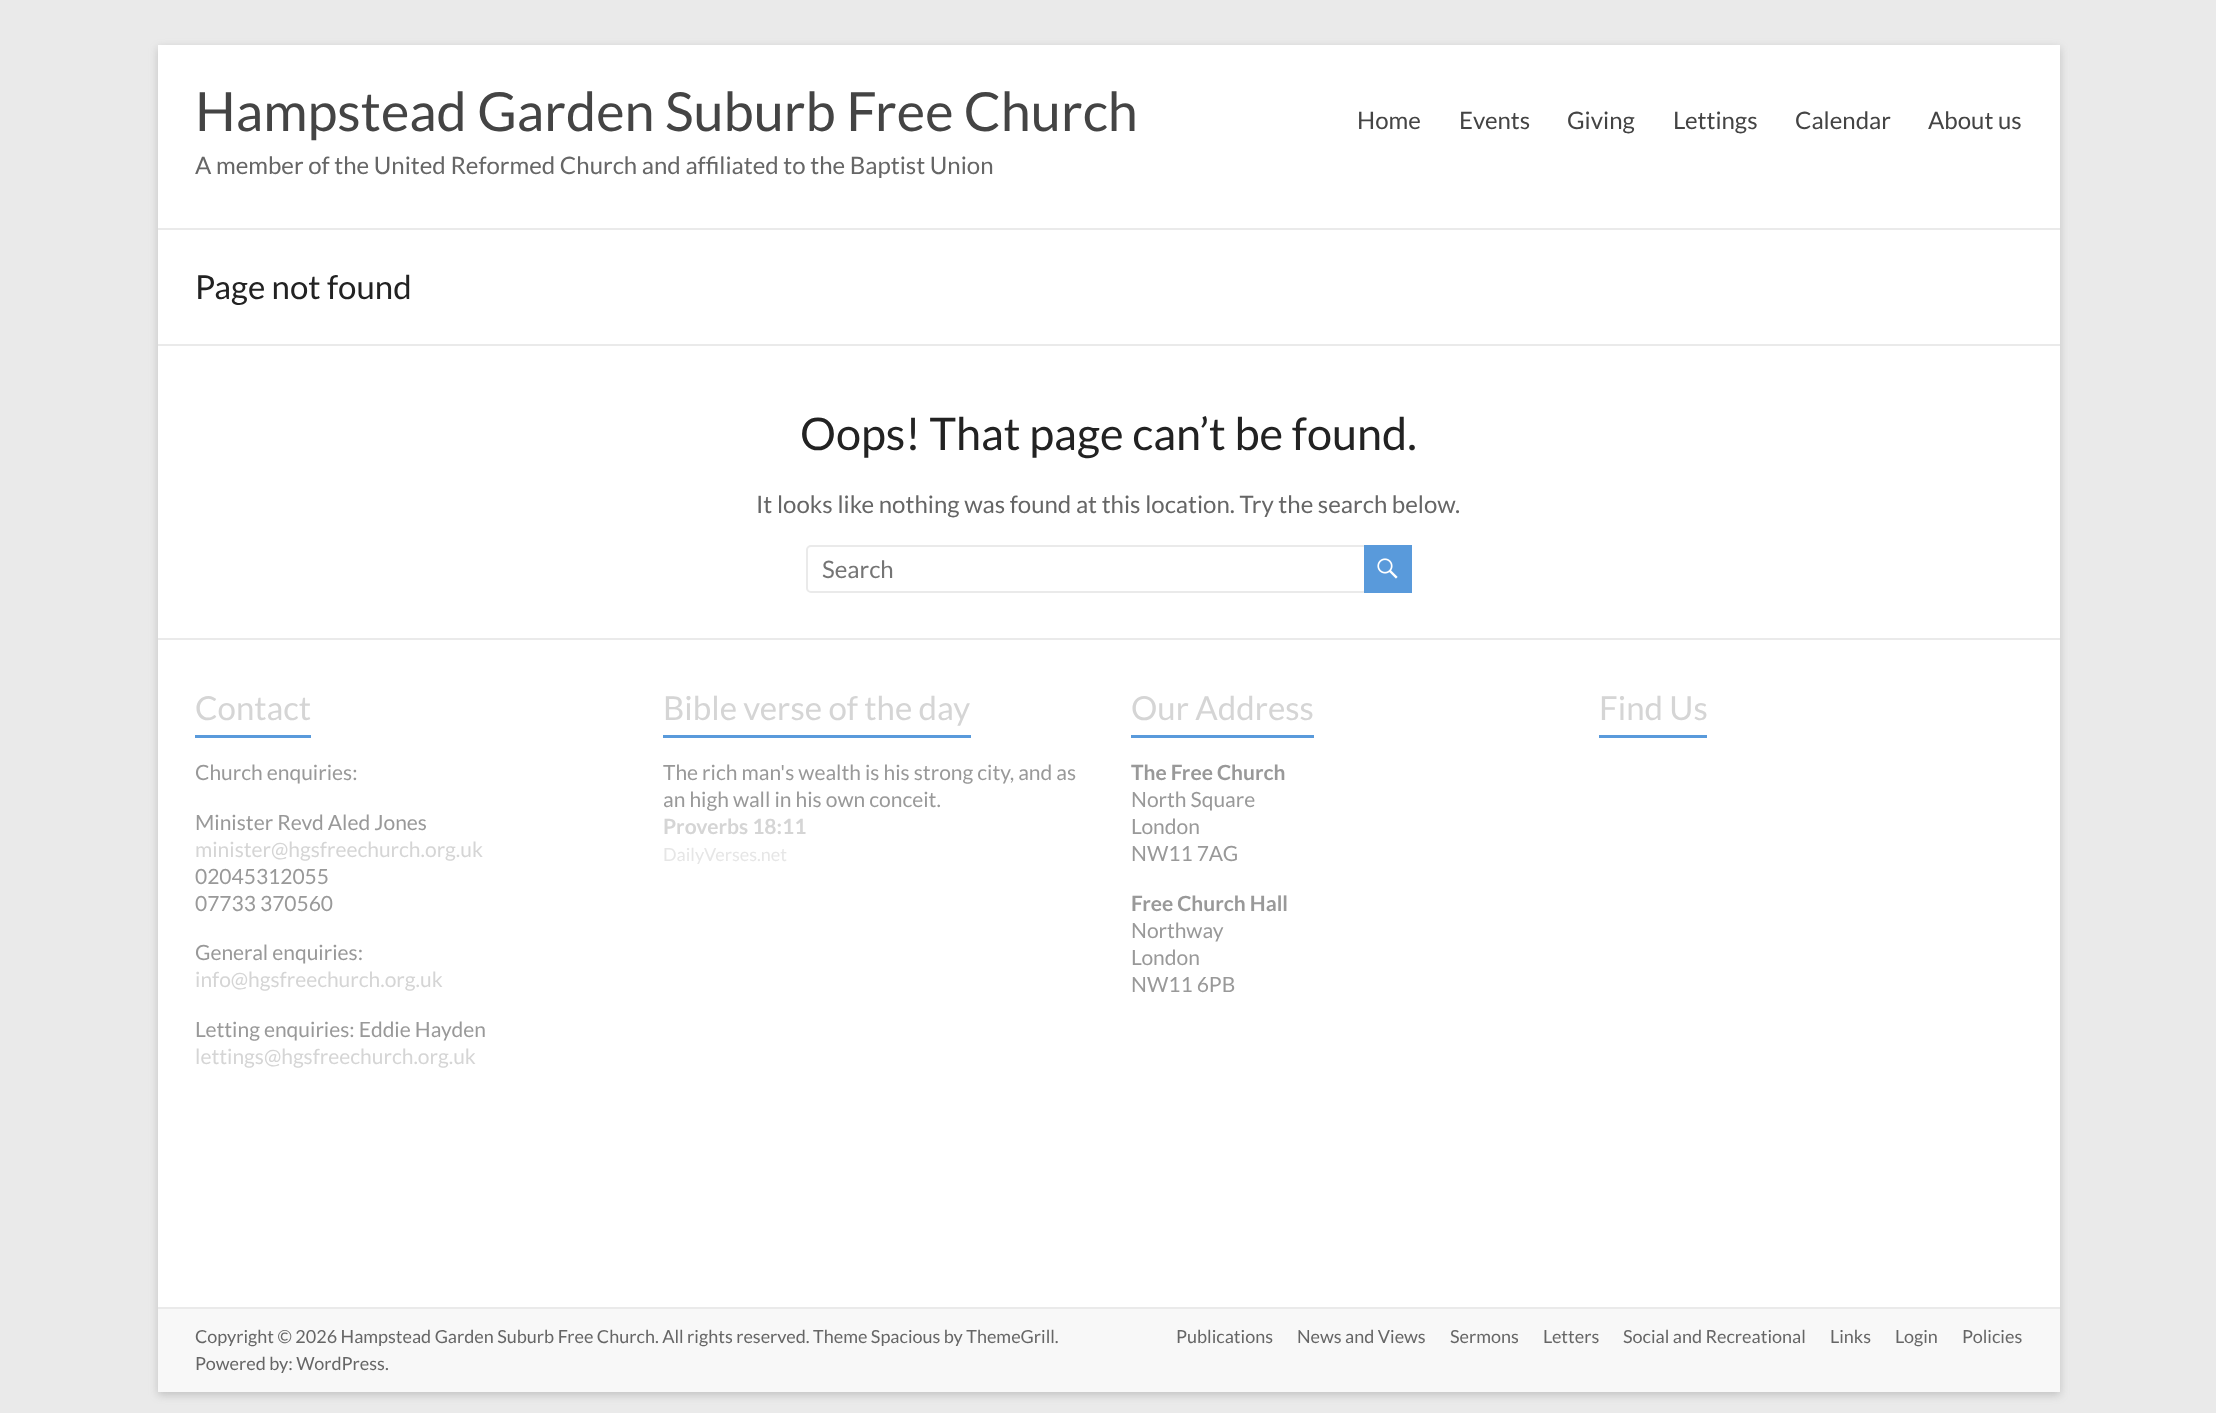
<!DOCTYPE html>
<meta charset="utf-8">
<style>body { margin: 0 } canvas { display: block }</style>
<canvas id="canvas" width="2216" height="1413"></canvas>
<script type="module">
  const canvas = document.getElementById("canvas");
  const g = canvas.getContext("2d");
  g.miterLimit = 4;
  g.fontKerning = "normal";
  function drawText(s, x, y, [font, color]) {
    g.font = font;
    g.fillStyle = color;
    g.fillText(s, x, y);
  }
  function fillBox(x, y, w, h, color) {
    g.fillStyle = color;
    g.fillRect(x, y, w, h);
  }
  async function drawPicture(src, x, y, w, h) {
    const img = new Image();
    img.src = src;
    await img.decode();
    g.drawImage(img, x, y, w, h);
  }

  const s1 = ["54px Lato", "#444444"];
  const s2 = ["24px Lato", "#666666"];
  const s3 = ["24px Lato", "#444444"];
  const s4 = ["33px Lato", "#222222"];
  const s5 = ["45px Lato", "#222222"];
  const s6 = ["24px Lato", "#757575"];
  const s7 = ["33px Lato", "#D5D5D5"];
  const s8 = ["21px Lato", "#999999"];
  const s9 = ["21px Lato", "#D5D5D5"];
  const s10 = ["bold 21px Lato", "#D5D5D5"];
  const s11 = ["18px Lato", "#E6E6E6"];
  const s12 = ["bold 21px Lato", "#999999"];
  const s13 = ["18px Lato", "#666666"];

  fillBox(0, 0, 2216, 1413, "#EAEAEA");
  g.fillStyle = "rgba(100, 100, 100, 0.3)";
  g.filter = "blur(4.5px)";
  g.beginPath();
  g.rect(158, 48, 1902, 1347);
  g.fill();
  g.filter = "none";
  fillBox(158, 45, 1902, 1262, "#FFFFFF");
  fillBox(158, 228, 1902, 2, "#EAEAEA");
  drawText("Hampstead Garden Suburb Free Church", 195, 131, s1);
  drawText("A member of the United Reformed Church and affiliated to the Baptist Union", 195, 174, s2);
  drawText("Home", 1357, 129, s3);
  drawText("Events", 1459, 129, s3);
  drawText("Giving", 1567, 129, s3);
  drawText("Lettings", 1673, 129, s3);
  drawText("Calendar", 1795, 129, s3);
  drawText("About us", 1928, 129, s3);
  fillBox(158, 344, 1902, 2, "#EAEAEA");
  drawText("Page not found", 195, 299, s4);
  drawText("Oops! That page can’t be found.", 800, 450, s5);
  drawText("It looks like nothing was found at this location. Try the search below.", 756, 513, s2);
  g.beginPath();
  g.roundRect(807, 546, 560, 46, 4);
  g.strokeStyle = "#EAEAEA";
  g.lineWidth = 2;
  g.stroke();
  drawText("Search", 822, 578, s6);
  fillBox(1364, 545, 48, 48, "#599ADB");
  await drawPicture("pic1.png", 1377, 558, 21, 21);
  fillBox(158, 638, 1902, 2, "#EAEAEA");
  drawText("Contact", 195, 720, s7);
  fillBox(195, 735, 116, 3, "#599ADB");
  drawText("Church enquiries:", 195, 780, s8);
  drawText("Minister Revd Aled Jones", 195, 830, s8);
  drawText("minister@hgsfreechurch.org.uk", 195, 857, s9);
  drawText("02045312055", 195, 884, s8);
  drawText("07733 370560", 195, 911, s8);
  drawText("General enquiries:", 195, 960, s8);
  drawText("info@hgsfreechurch.org.uk", 195, 987, s9);
  drawText("Letting enquiries: Eddie Hayden", 195, 1037, s8);
  drawText("lettings@hgsfreechurch.org.uk", 195, 1064, s9);
  drawText("Bible verse of the day", 663, 720, s7);
  fillBox(663, 735, 308, 3, "#599ADB");
  drawText("The rich man's wealth is his strong city, and as", 663, 780, s8);
  drawText("an high wall in his own conceit.", 663, 807, s8);
  drawText("Proverbs 18:11", 663, 834, s10);
  drawText("DailyVerses.net", 663, 861, s11);
  drawText("Our Address", 1131, 720, s7);
  fillBox(1131, 735, 183, 3, "#599ADB");
  drawText("The Free Church", 1131, 780, s12);
  drawText("North Square", 1131, 807, s8);
  drawText("London", 1131, 834, s8);
  drawText("NW11 7AG", 1131, 861, s8);
  drawText("Free Church Hall", 1131, 911, s12);
  drawText("Northway", 1131, 938, s8);
  drawText("London", 1131, 965, s8);
  drawText("NW11 6PB", 1131, 992, s8);
  drawText("Find Us", 1599, 720, s7);
  fillBox(1599, 735, 108, 3, "#599ADB");
  fillBox(158, 1309, 1902, 83, "#F8F8F8");
  fillBox(158, 1307, 1902, 2, "#EAEAEA");
  drawText("Copyright © 2026 Hampstead Garden Suburb Free Church. All rights reserved. Theme Spacious by ThemeGrill.", 195, 1343, s13);
  drawText("Powered by: WordPress.", 195, 1370, s13);
  drawText("Publications", 1176, 1343, s13);
  drawText("News and Views", 1297, 1343, s13);
  drawText("Sermons", 1450, 1343, s13);
  drawText("Letters", 1543, 1343, s13);
  drawText("Social and Recreational", 1623, 1343, s13);
  drawText("Links", 1830, 1343, s13);
  drawText("Login", 1895, 1343, s13);
  drawText("Policies", 1962, 1343, s13);
</script>
